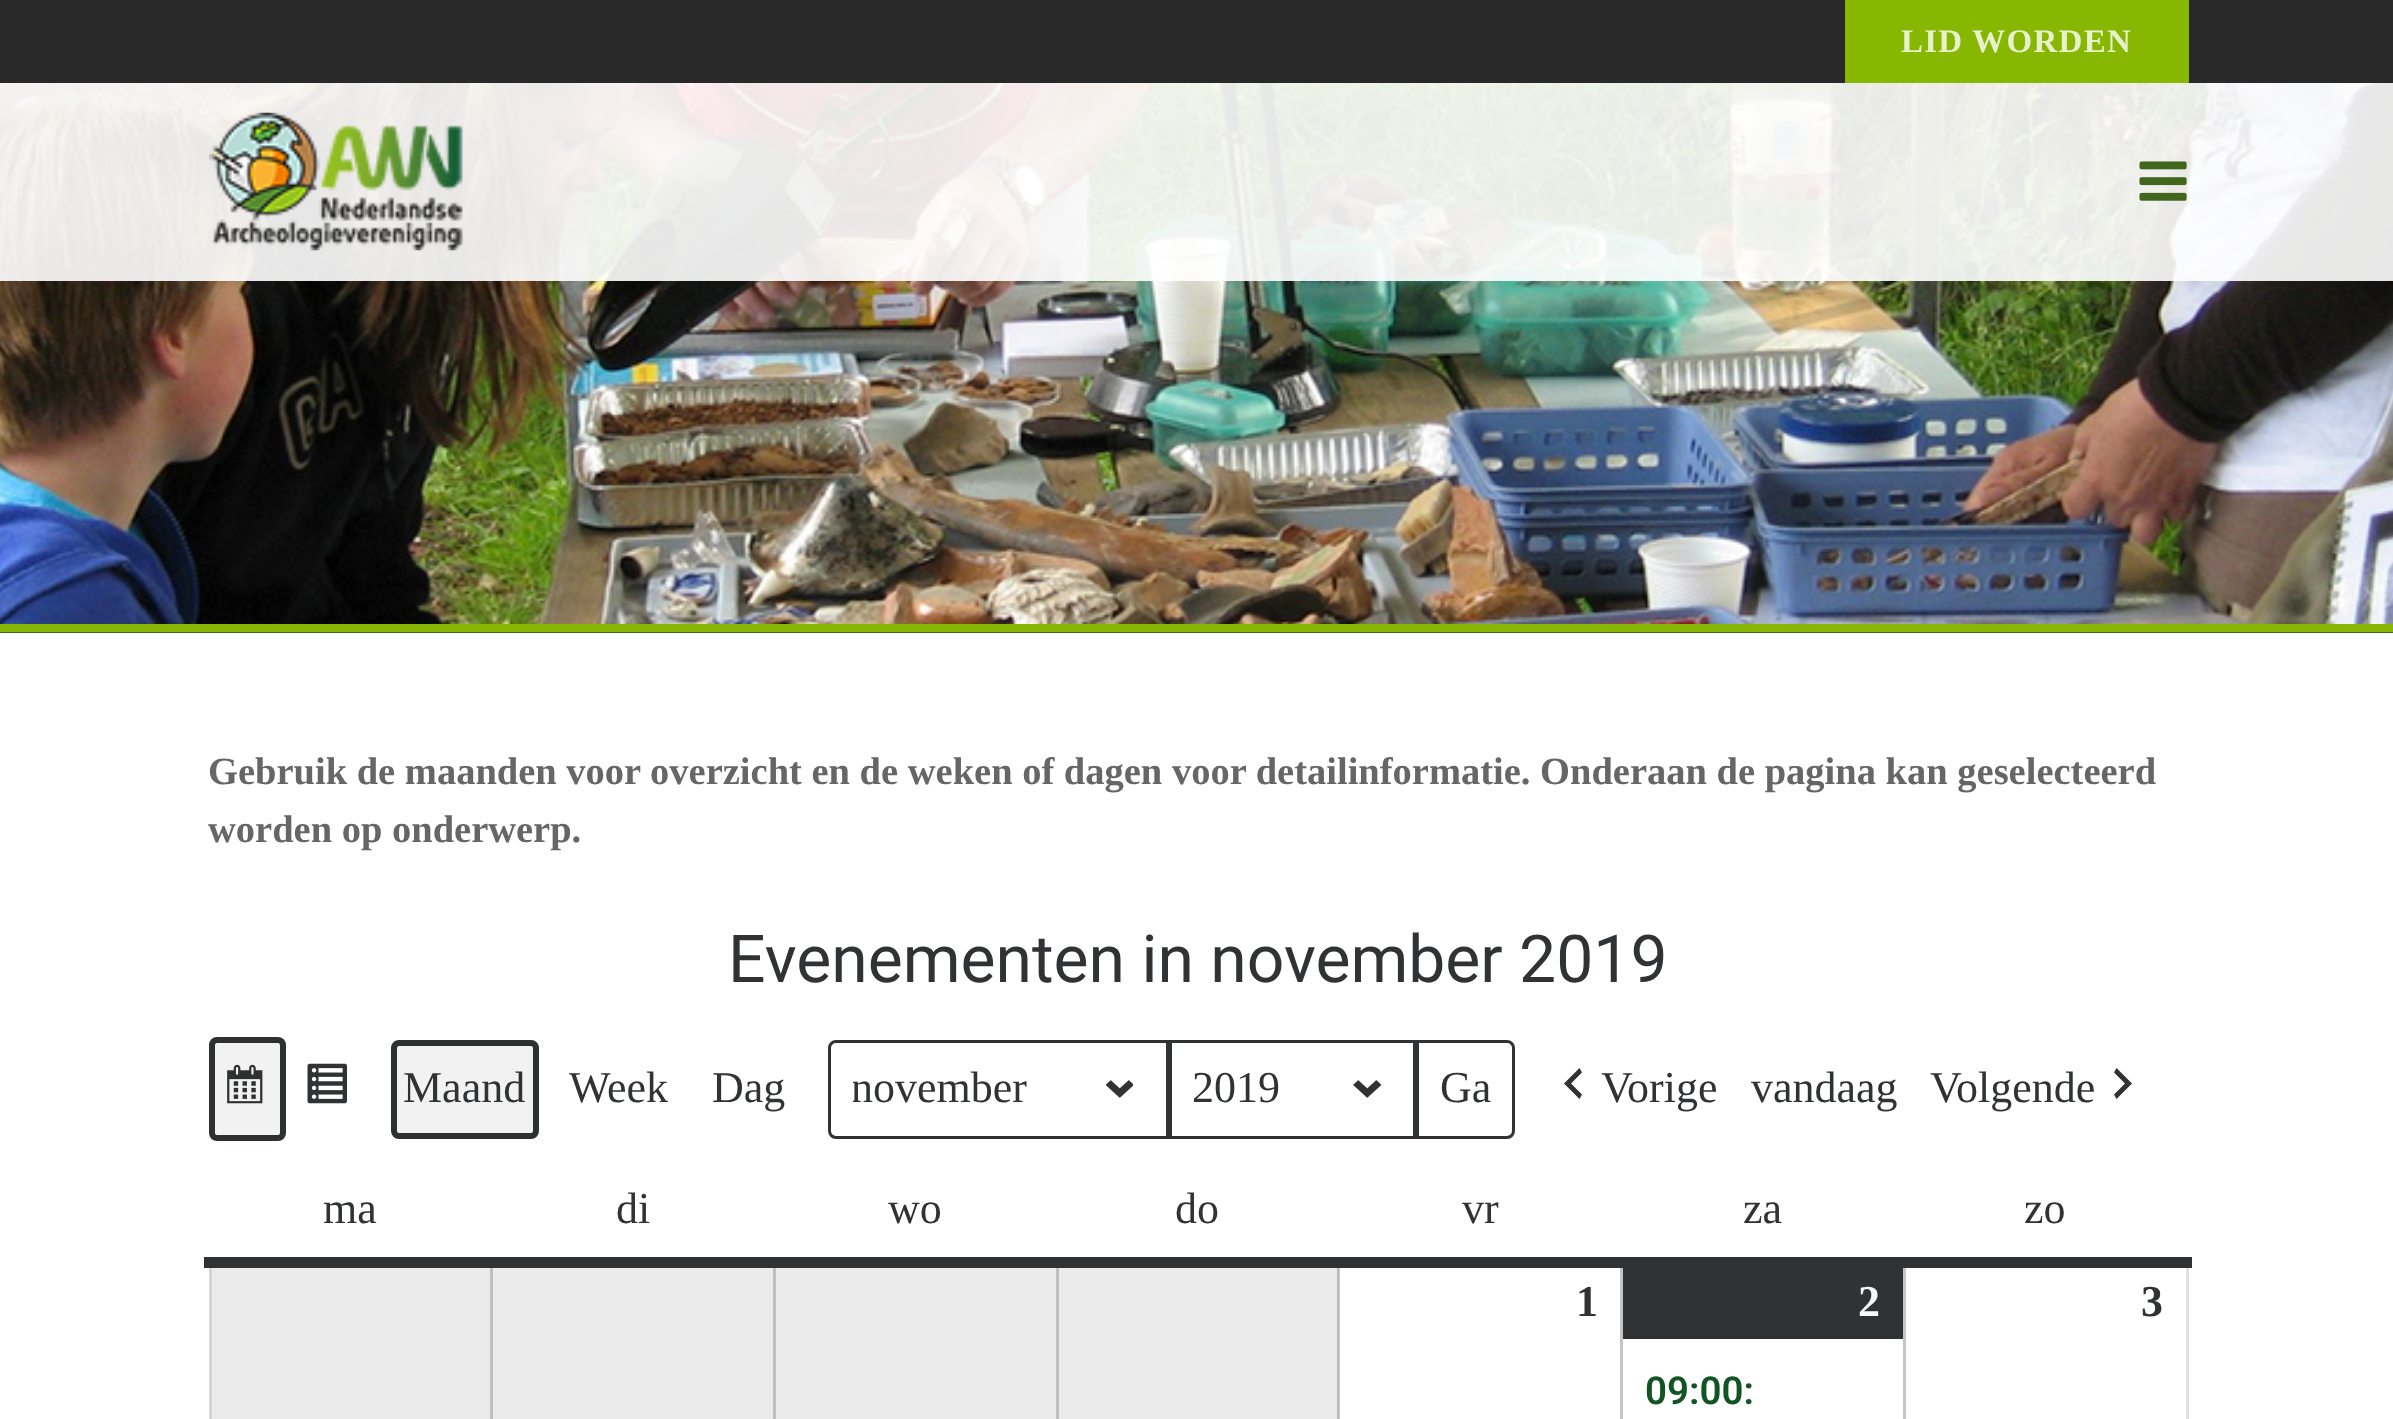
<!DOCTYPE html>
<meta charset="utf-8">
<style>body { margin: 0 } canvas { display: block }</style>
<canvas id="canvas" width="2393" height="1419"></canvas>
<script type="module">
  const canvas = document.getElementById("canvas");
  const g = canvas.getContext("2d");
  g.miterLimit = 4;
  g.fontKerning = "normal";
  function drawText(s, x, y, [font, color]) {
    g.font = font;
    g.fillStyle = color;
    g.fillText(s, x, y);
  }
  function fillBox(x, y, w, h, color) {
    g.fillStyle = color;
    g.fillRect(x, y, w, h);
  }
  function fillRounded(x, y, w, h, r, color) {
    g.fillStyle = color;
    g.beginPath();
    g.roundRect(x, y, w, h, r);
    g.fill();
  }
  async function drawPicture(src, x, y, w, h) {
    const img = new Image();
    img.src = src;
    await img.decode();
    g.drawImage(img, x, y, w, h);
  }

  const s1 = ["bold 33px Liberation Serif", "#E7F1CC"];
  const s2 = ["bold 38.5px Liberation Serif", "#666666"];
  const s3 = ["66px Roboto", "#313233"];
  const s4 = ["44px Liberation Serif", "#313233"];
  const s5 = ["bold 44px Liberation Serif", "#313233"];
  const s6 = ["bold 44px Liberation Serif", "#F6F7F7"];
  const s7 = ["600 38.5px Roboto", "#135424"];

  fillBox(0, 0, 2393, 1419, "#FFFFFF");
  fillBox(1339, 1260, 1, 159, "#CACACA");
  fillBox(1620, 1260, 3, 159, "#C5C5C5");
  fillBox(1903, 1260, 3, 159, "#C5C5C5");
  fillBox(2186, 1260, 3, 159, "#E0E0E0");
  fillBox(0, 0, 2393, 83, "#292929");
  fillBox(1845, 0, 344, 83, "#87B700");
  g.letterSpacing = "1.25px";
  drawText("LID WORDEN", 1901, 52, s1);
  await drawPicture("pic3.png", 0, 83, 2393, 541);
  fillBox(0, 83, 2393, 198, "rgba(255, 255, 255, 0.9)");
  await drawPicture("pic1.png", 209, 112, 254, 139);
  await drawPicture("pic2.png", 2139, 161, 48, 40);
  fillBox(0, 632, 2393, 1, "#43661F");
  fillBox(0, 624, 2393, 8, "#87B700");
  g.letterSpacing = "0px";
  drawText("Gebruik de maanden voor overzicht en de weken of dagen voor detailinformatie. Onderaan de pagina kan geselecteerd", 208, 784, s2);
  drawText("worden op onderwerp.", 208, 842, s2);
  drawText("Evenementen in november 2019", 728, 982, s3);
  fillRounded(209, 1037, 77, 104, 8, "#F2F2F2");
  await drawPicture("pic4.png", 227, 1064, 36, 40);
  g.beginPath();
  g.roundRect(212, 1040, 71, 98, 5);
  g.strokeStyle = "#2F3030";
  g.lineWidth = 6;
  g.stroke();
  await drawPicture("pic5.png", 307, 1063, 40, 41);
  fillRounded(391, 1040, 148, 99, 8, "#F2F2F2");
  g.beginPath();
  g.roundRect(394, 1043, 142, 93, 5);
  g.stroke();
  drawText("Maand", 403, 1102, s4);
  drawText("Week", 569, 1102, s4);
  drawText("Dag", 712, 1102, s4);
  await drawPicture("pic6.png", 1106, 1080, 27, 18);
  g.beginPath();
  g.roundRect(829.5, 1041.5, 338, 96, [6.5, 0, 0, 6.5]);
  g.strokeStyle = "#313233";
  g.lineWidth = 3;
  g.stroke();
  g.save();
  g.beginPath();
  g.rect(853, 1053, 181, 72);
  g.clip();
  drawText("november", 851, 1102, s4);
  g.restore();
  await drawPicture("pic7.png", 1353, 1080, 28, 18);
  g.strokeRect(1170.5, 1041.5, 244, 96);
  drawText("2019", 1192, 1102, s4);
  g.beginPath();
  g.roundRect(1417.5, 1041.5, 96, 96, [0, 6.5, 6.5, 0]);
  g.stroke();
  drawText("Ga", 1440, 1102, s4);
  g.beginPath();
  g.moveTo(1582, 1072.5);
  g.lineTo(1571, 1083.5);
  g.lineTo(1582, 1094.5);
  g.lineTo(1579.5, 1099);
  g.lineTo(1564, 1083.5);
  g.lineTo(1579.5, 1068);
  g.closePath();
  g.fill();
  drawText("Vorige", 1601, 1102, s4);
  drawText("vandaag", 1751, 1102, s4);
  drawText("Volgende", 1930, 1102, s4);
  g.beginPath();
  g.moveTo(2114, 1094.5);
  g.lineTo(2125, 1083.5);
  g.lineTo(2114, 1072.5);
  g.lineTo(2116.5, 1068);
  g.lineTo(2132, 1083.5);
  g.lineTo(2116.5, 1099);
  g.closePath();
  g.fill();
  fillBox(209, 1262, 3, 157, "#D4D4D4");
  fillBox(490, 1262, 3, 157, "#BFBFBF");
  fillBox(773, 1262, 3, 157, "#BFBFBF");
  fillBox(1056, 1262, 3, 157, "#BFBFBF");
  fillBox(1337, 1262, 2, 157, "#BABABA");
  fillBox(204, 1257, 1988, 11, "#313233");
  drawText("ma", 323, 1223, s4);
  drawText("di", 616, 1223, s4);
  drawText("wo", 888, 1223, s4);
  drawText("do", 1175, 1223, s4);
  drawText("vr", 1462, 1223, s4);
  drawText("za", 1743, 1223, s4);
  drawText("zo", 2024, 1223, s4);
  fillBox(212, 1268, 278, 151, "#EBEBEB");
  fillBox(493, 1268, 280, 151, "#EBEBEB");
  fillBox(776, 1268, 280, 151, "#EBEBEB");
  fillBox(1059, 1268, 278, 151, "#EBEBEB");
  drawText("1", 1576, 1316, s5);
  fillBox(1623, 1268, 280, 71, "#313233");
  drawText("2", 1858, 1316, s6);
  drawText("09:00:", 1645, 1404, s7);
  drawText("3", 2141, 1316, s5);
</script>
